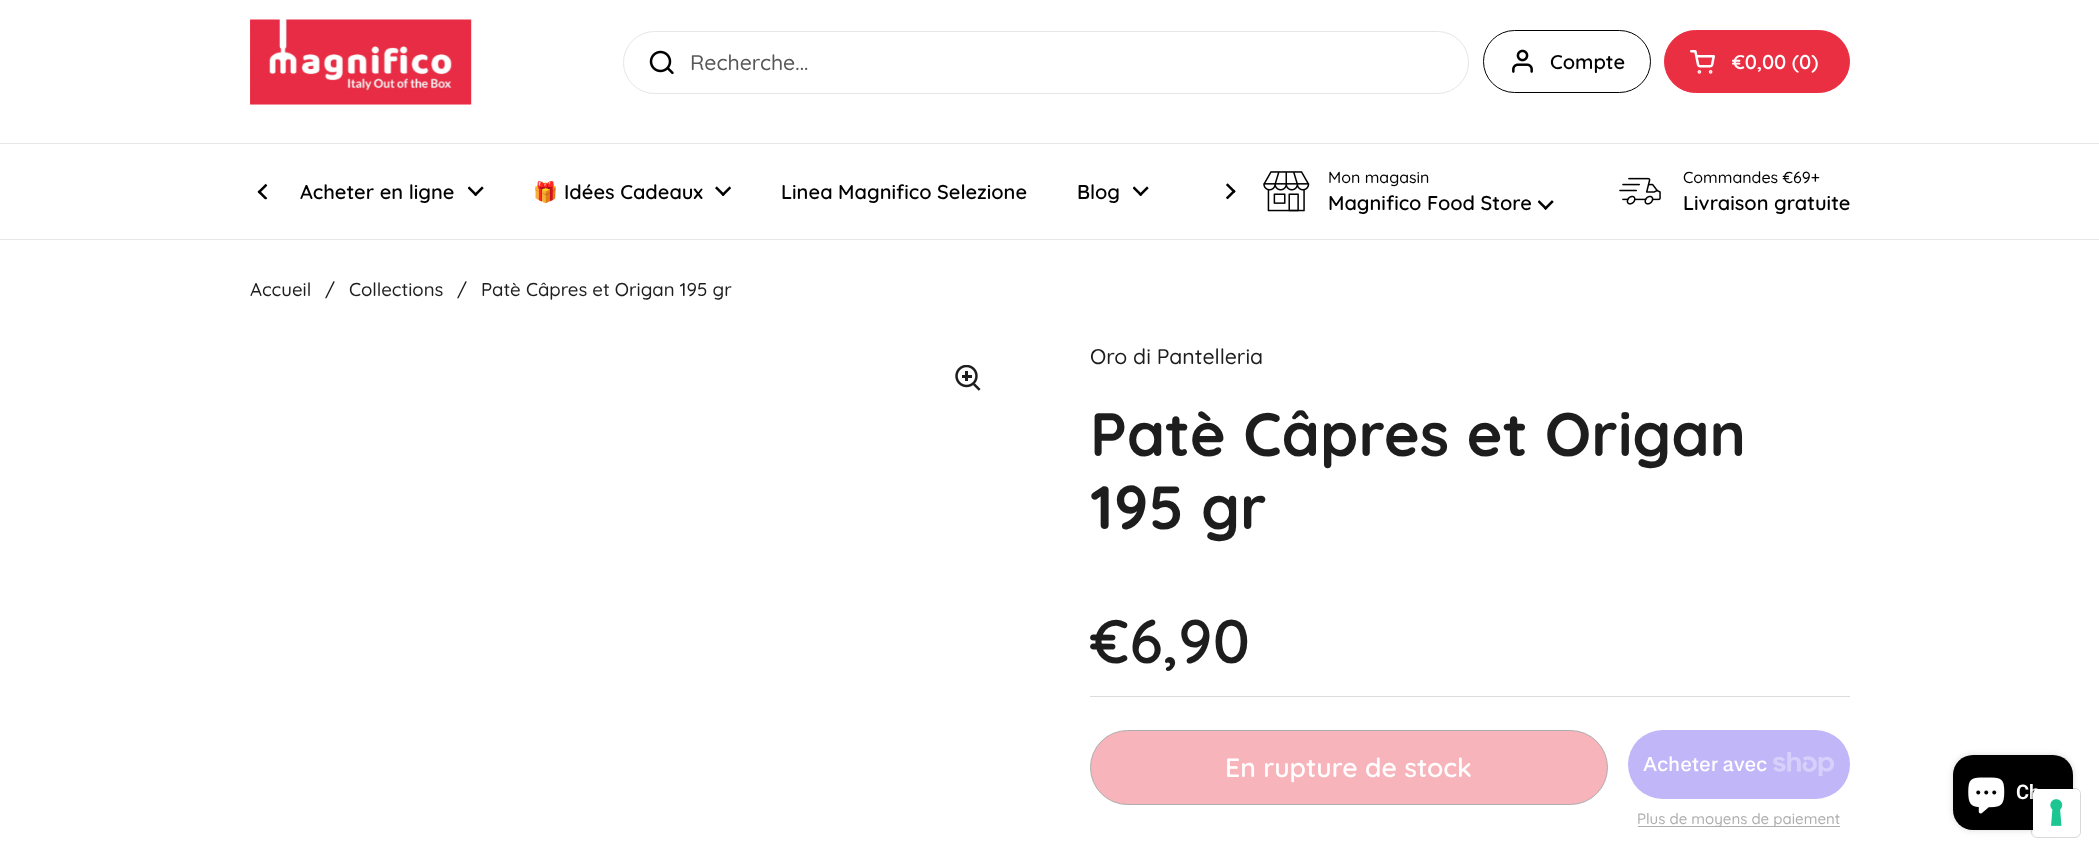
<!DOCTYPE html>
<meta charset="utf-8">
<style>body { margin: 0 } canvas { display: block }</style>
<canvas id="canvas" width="2099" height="856"></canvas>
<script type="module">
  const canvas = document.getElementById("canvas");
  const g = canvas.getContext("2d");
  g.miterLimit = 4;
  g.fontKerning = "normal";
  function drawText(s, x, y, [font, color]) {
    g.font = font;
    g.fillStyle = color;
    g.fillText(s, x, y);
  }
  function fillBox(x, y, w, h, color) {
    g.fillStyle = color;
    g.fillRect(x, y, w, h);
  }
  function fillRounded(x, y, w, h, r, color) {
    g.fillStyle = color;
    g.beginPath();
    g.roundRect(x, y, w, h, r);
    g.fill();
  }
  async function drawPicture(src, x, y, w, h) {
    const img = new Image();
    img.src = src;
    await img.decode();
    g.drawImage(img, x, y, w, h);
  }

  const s1 = ["500 21.25px Quicksand", "#575757"];
  const s2 = ["600 20px Quicksand", "#000000"];
  const s3 = ["600 20px Quicksand", "#FFFFFF"];
  const s4 = ["bold 20px Noto Color Emoji", "#000000"];
  const s5 = ["500 16px Quicksand", "#000000"];
  const s6 = ["500 18.6px Quicksand", "#1D1D1D"];
  const s7 = ["500 21.25px Quicksand", "#1D1D1D"];
  const s8 = ["bold 61.25px Quicksand", "#1D1D1D"];
  const s9 = ["600 61.25px Quicksand", "#1D1D1D"];
  const s10 = ["600 26.5px Quicksand", "#FFFFFF"];
  const s11 = ["500 20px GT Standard", "#FFFFFF"];
  const s12 = ["500 15px Quicksand", "#AEAEAE"];
  const s13 = ["600 20px Roboto", "#FFFFFF"];

  fillBox(0, 0, 2099, 856, "#FFFFFF");
  fillBox(0, 143, 2099, 1, "#E6E6E6");
  await drawPicture("pic1.png", 250, 19, 222, 86);
  g.beginPath();
  g.roundRect(623.5, 31.5, 845, 62, 31);
  g.strokeStyle = "#E6E6E6";
  g.stroke();
  await drawPicture("pic2.png", 649, 50, 25, 25);
  drawText("Recherche...", 690, 70, s1);
  g.beginPath();
  g.roundRect(1483.5, 30.5, 167, 62, 31);
  g.strokeStyle = "#000000";
  g.stroke();
  await drawPicture("pic3.png", 1512, 49, 21, 24);
  drawText("Compte", 1550, 69, s2);
  g.fillStyle = "#EA2F42";
  g.beginPath();
  g.roundRect(1664.5, 30.5, 185, 62, 31);
  g.fill();
  g.strokeStyle = "#EA2F42";
  g.stroke();
  await drawPicture("pic4.png", 1690, 50, 25, 24);
  drawText("€0,00 (0)", 1732, 69, s3);
  fillBox(0, 239, 2099, 1, "#E6E6E6");
  await drawPicture("pic5.png", 257, 183, 11, 17);
  drawText("Acheter en ligne", 300, 199, s2);
  await drawPicture("pic6.png", 468, 186, 16, 10);
  drawText("🎁", 533, 199, s4);
  drawText("Idées Cadeaux", 564, 199, s2);
  await drawPicture("pic7.png", 715, 186, 16, 10);
  drawText("Linea Magnifico Selezione", 781, 199, s2);
  drawText("Blog", 1077, 199, s2);
  await drawPicture("pic6.png", 1133, 186, 16, 10);
  await drawPicture("pic8.png", 1226, 183, 10, 17);
  await drawPicture("pic9.png", 1263, 171, 47, 41);
  drawText("Mon magasin", 1328, 183, s5);
  drawText("Magnifico Food Store", 1328, 210, s2);
  await drawPicture("pic10.png", 1538, 200, 16, 10);
  await drawPicture("pic11.png", 1619, 177, 42, 28);
  drawText("Commandes €69+", 1683, 183, s5);
  drawText("Livraison gratuite", 1683, 210, s2);
  drawText("Accueil", 250, 296, s6);
  drawText("/", 325, 296, s6);
  drawText("Collections", 349, 296, s6);
  drawText("/", 457, 296, s6);
  drawText("Patè Câpres et Origan 195 gr", 481, 296, s6);
  await drawPicture("pic12.png", 955, 365, 26, 26);
  drawText("Oro di Pantelleria", 1090, 364, s7);
  drawText("Patè Câpres et Origan", 1090, 456, s8);
  drawText("195 gr", 1090, 529, s8);
  drawText("€6,90", 1090, 663, s9);
  fillBox(1090, 696, 760, 1, "#DDDDDD");
  g.fillStyle = "#F7B4BB";
  g.beginPath();
  g.roundRect(1090.5, 730.5, 517, 74, 37);
  g.fill();
  g.strokeStyle = "#AEAEAE";
  g.stroke();
  drawText("En rupture de stock", 1225, 777, s10);
  fillRounded(1628, 730, 222, 69, 34.5, "#C1B6F8");
  drawText("Acheter avec", 1643, 771, s11);
  await drawPicture("pic13.png", 1773, 752, 61, 24);
  fillBox(1638, 826, 202, 1, "#AEAEAE");
  drawText("Plus de moyens de paiement", 1637, 824, s12);
  g.fillStyle = "rgba(0, 0, 0, 0.15)";
  g.filter = "blur(3px)";
  g.beginPath();
  g.roundRect(1953, 755, 120, 75, 20);
  g.fill();
  g.filter = "none";
  fillRounded(1953, 755, 120, 75, 20, "#000000");
  await drawPicture("pic14.png", 1968, 777, 37, 37);
  drawText("Ch", 2016, 799, s13);
  g.beginPath();
  g.roundRect(2031.5, 788.5, 49, 49, 5.5);
  g.strokeStyle = "rgba(0, 0, 0, 0.15)";
  g.stroke();
  fillRounded(2033, 789, 47, 47, 5, "#FFFFFF");
  await drawPicture("pic15.png", 2050, 799, 13, 27);
</script>
